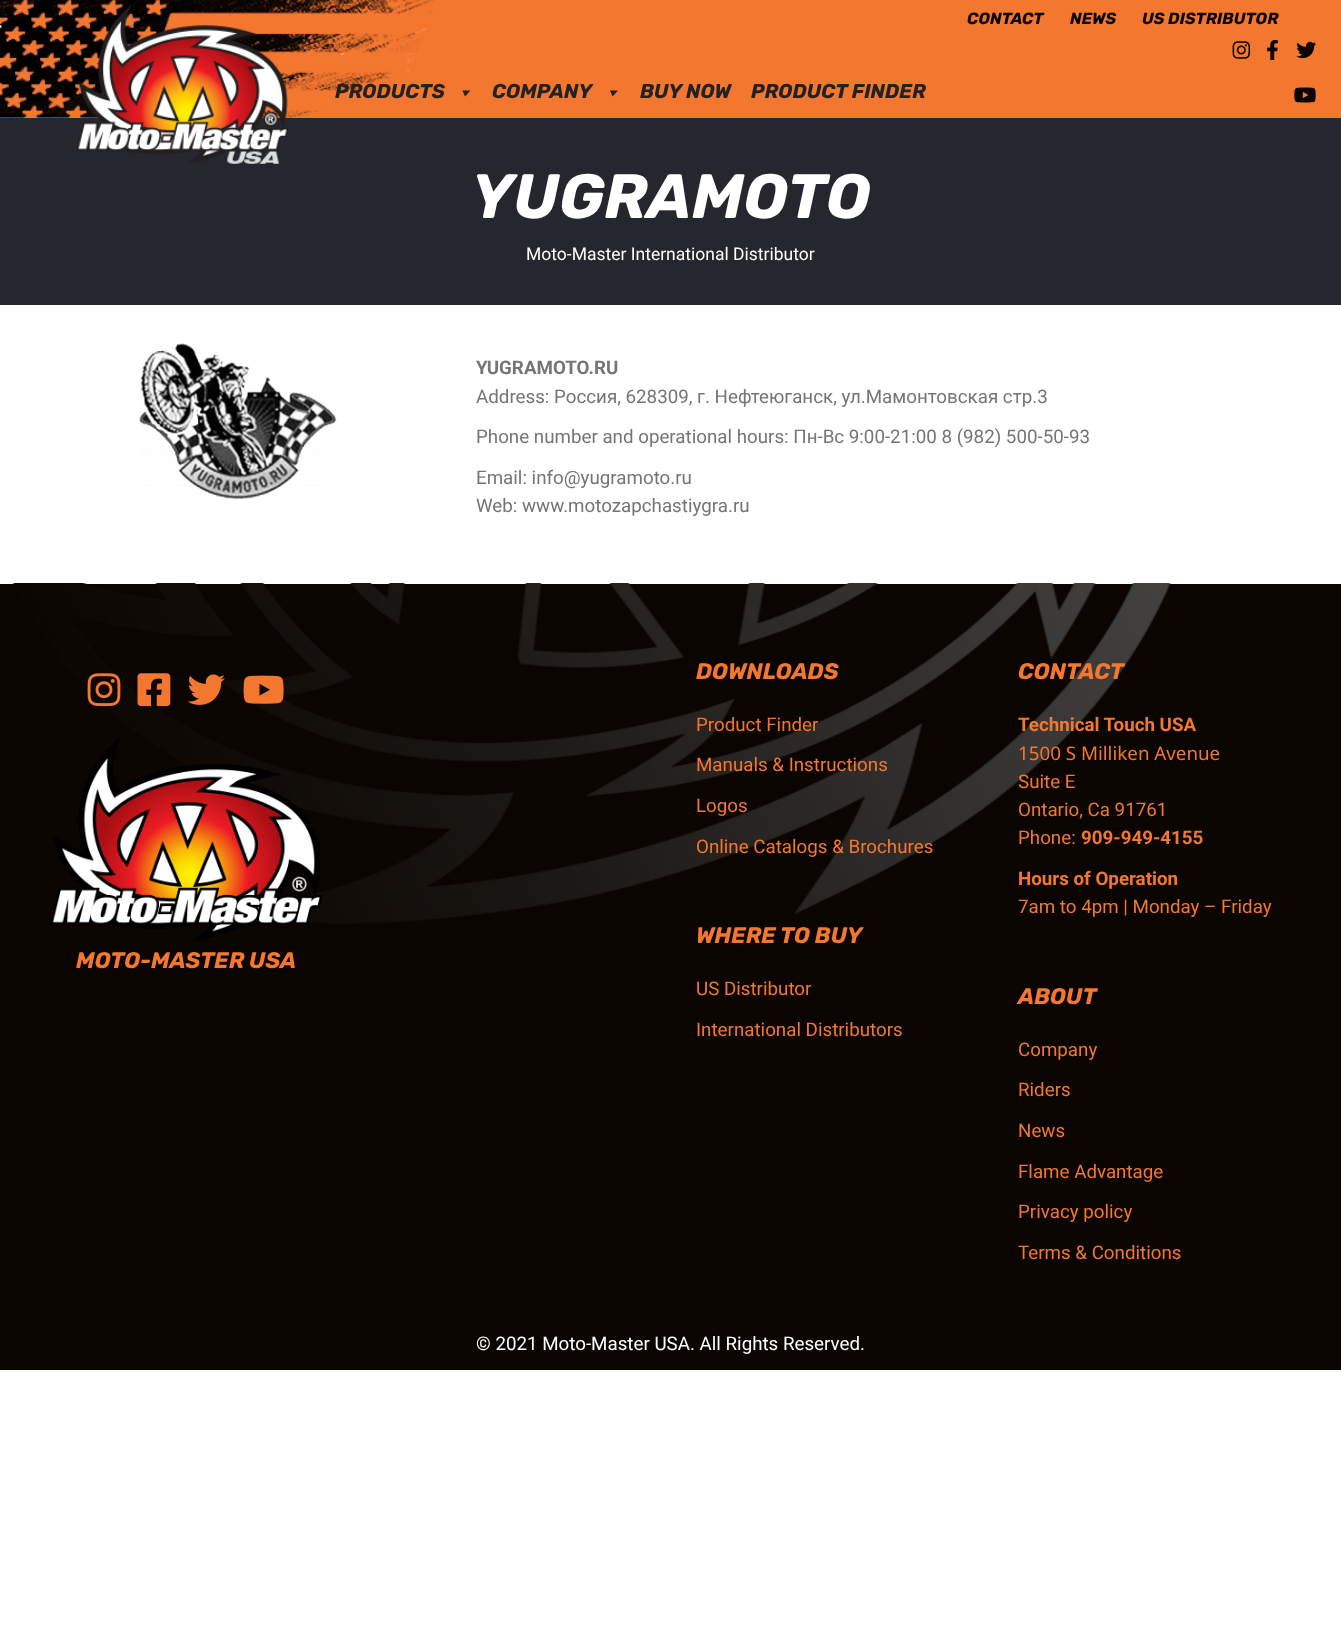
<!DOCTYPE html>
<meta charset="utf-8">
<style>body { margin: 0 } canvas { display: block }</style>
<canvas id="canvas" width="1341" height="1628"></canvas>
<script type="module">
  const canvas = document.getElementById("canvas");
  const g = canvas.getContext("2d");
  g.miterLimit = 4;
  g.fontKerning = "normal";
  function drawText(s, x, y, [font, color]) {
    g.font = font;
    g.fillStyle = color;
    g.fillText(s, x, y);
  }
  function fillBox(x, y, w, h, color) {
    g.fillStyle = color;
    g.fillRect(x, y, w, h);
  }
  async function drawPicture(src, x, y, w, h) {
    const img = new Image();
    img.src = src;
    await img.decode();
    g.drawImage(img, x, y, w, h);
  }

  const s1 = ["italic 300 16.25px Rubik", "#0A0500"];
  const s2 = ["italic 300 20px Rubik", "#222222"];
  const s3 = ["italic 300 62.5px Rubik", "#FFFFFF"];
  const s4 = ["17.5px Roboto", "#FFFFFF"];
  const s5 = ["bold 18.75px Roboto", "#757575"];
  const s6 = ["18.75px Roboto", "#757575"];
  const s7 = ["italic 300 22.5px Rubik", "#F47730"];
  const s8 = ["18.75px Roboto", "#F47730"];
  const s9 = ["bold 18.75px Roboto", "#F47730"];
  const s10 = ["18.75px Noto Sans", "#F47730"];
  const s11 = ["18.75px Roboto", "#FFFFFF"];

  fillBox(0, 0, 1341, 1628, "#FFFFFF");
  fillBox(0, 0, 1341, 118, "#F47730");
  await drawPicture("pic1.png", 0, 0, 435, 118);
  drawText("CONTACT", 967, 24, s1);
  drawText("NEWS", 1070, 24, s1);
  drawText("US DISTRIBUTOR", 1142, 24, s1);
  fillBox(0, 118, 1341, 187, "#26272E");
  await drawPicture("pic2.png", 76, 5, 213, 159);
  drawText("PRODUCTS", 335, 98, s2);
  g.beginPath();
  g.moveTo(470.5, 90.5);
  g.lineTo(465, 96.5);
  g.lineTo(462.5, 90.5);
  g.closePath();
  g.fill();
  drawText("COMPANY", 492, 98, s2);
  g.beginPath();
  g.moveTo(618, 90.5);
  g.lineTo(612.5, 96.5);
  g.lineTo(610, 90.5);
  g.closePath();
  g.fill();
  drawText("BUY NOW", 640, 98, s2);
  drawText("PRODUCT FINDER", 751, 98, s2);
  await drawPicture("pic3.png", 1232, 41, 19, 18);
  await drawPicture("pic4.png", 1267, 40, 11, 20);
  await drawPicture("pic5.png", 1296, 41, 21, 18);
  await drawPicture("pic6.png", 1294, 87, 22, 16);
  drawText("YUGRAMOTO", 471, 218, s3);
  drawText("Moto-Master International Distributor", 526, 260, s4);
  await drawPicture("pic7.png", 139, 343, 198, 157);
  drawText("YUGRAMOTO.RU", 476, 374, s5);
  drawText("Address: Россия, 628309, г. Нефтеюганск, ул.Мамонтовская стр.3", 476, 403, s6);
  drawText("Phone number and operational hours: Пн-Вс 9:00-21:00 8 (982) 500-50-93", 476, 443, s6);
  drawText("Email: info@yugramoto.ru", 476, 484, s6);
  drawText("Web: www.motozapchastiygra.ru", 476, 512, s6);
  fillBox(0, 584, 1341, 786, "#0A0500");
  await drawPicture("pic8.png", 12, 583, 1159, 341);
  await drawPicture("pic9.png", 87, 673, 34, 34);
  await drawPicture("pic10.png", 137, 673, 34, 34);
  await drawPicture("pic11.png", 187, 674, 38, 31);
  await drawPicture("pic12.png", 243, 675, 41, 29);
  await drawPicture("pic13.png", 50, 738, 273, 203);
  drawText("MOTO-MASTER USA", 76, 968, s7);
  drawText("DOWNLOADS", 696, 679, s7);
  drawText("Product Finder", 696, 731, s8);
  drawText("Manuals & Instructions", 696, 771, s8);
  drawText("Logos", 696, 812, s8);
  drawText("Online Catalogs & Brochures", 696, 853, s8);
  drawText("WHERE TO BUY", 696, 943, s7);
  drawText("US Distributor", 696, 995, s8);
  drawText("International Distributors", 696, 1036, s8);
  drawText("CONTACT", 1018, 679, s7);
  drawText("Technical Touch USA", 1018, 731, s9);
  drawText("1500 S Milliken Avenue", 1018, 760, s10);
  drawText("Suite E", 1018, 788, s8);
  drawText("Ontario, Ca 91761", 1018, 816, s8);
  drawText("Phone:", 1018, 844, s8);
  drawText("909-949-4155", 1081, 844, s9);
  drawText("Hours of Operation", 1018, 885, s9);
  drawText("7am to 4pm | Monday – Friday", 1018, 913, s8);
  drawText("ABOUT", 1018, 1004, s7);
  drawText("Company", 1018, 1056, s8);
  drawText("Riders", 1018, 1096, s8);
  drawText("News", 1018, 1137, s8);
  drawText("Flame Advantage", 1018, 1178, s8);
  drawText("Privacy policy", 1018, 1218, s8);
  drawText("Terms & Conditions", 1018, 1259, s8);
  drawText("© 2021 Moto-Master USA. All Rights Reserved.", 476, 1350, s11);
</script>
